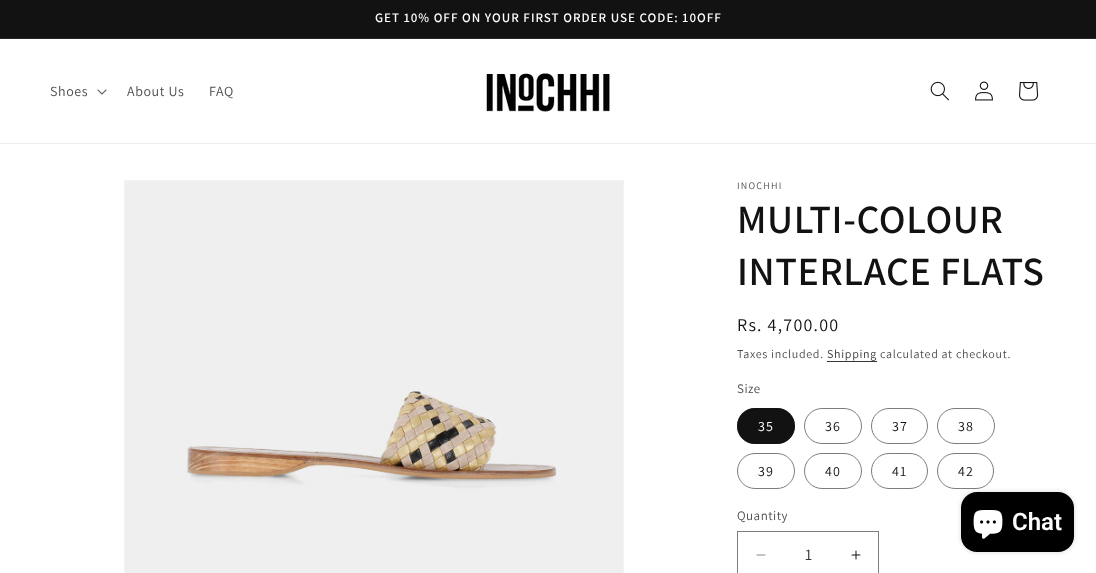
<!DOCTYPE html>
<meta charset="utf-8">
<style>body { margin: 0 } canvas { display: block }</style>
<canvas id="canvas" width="1096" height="573"></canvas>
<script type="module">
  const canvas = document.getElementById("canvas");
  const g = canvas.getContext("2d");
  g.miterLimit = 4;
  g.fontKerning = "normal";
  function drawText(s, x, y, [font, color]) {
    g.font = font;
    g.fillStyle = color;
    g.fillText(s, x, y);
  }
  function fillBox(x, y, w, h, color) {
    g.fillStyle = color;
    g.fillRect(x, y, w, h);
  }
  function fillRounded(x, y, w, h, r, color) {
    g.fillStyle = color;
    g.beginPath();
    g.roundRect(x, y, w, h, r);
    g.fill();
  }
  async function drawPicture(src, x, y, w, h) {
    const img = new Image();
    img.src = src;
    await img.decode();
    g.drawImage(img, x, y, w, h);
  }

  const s1 = ["600 13px Assistant", "#FEFEFE"];
  const s2 = ["14px Assistant", "#4D4D4D"];
  const s3 = ["10px Assistant", "#4D4D4D"];
  const s4 = ["600 40px Assistant", "#121212"];
  const s5 = ["18px Assistant", "#121212"];
  const s6 = ["12px Assistant", "#4D4D4D"];
  const s7 = ["12px Assistant", "#363636"];
  const s8 = ["13px Assistant", "#4D4D4D"];
  const s9 = ["14px Assistant", "#FEFEFE"];
  const s10 = ["14px Assistant", "#121212"];
  const s11 = ["16px Assistant", "#363636"];
  const s12 = ["600 24px Roboto", "#FEFEFE"];

  fillBox(0, 0, 1096, 573, "#FFFFFF");
  fillBox(0, 0, 1096, 38, "#121212");
  fillBox(0, 38, 1096, 1, "#252525");
  g.letterSpacing = "1px";
  drawText("GET 10% OFF ON YOUR FIRST ORDER USE CODE: 10OFF", 375, 22, s1);
  fillBox(0, 143, 1096, 1, "#ECECEC");
  g.letterSpacing = "0.6px";
  drawText("Shoes", 50, 96, s2);
  await drawPicture("pic1.png", 97, 89, 10, 6);
  drawText("About Us", 127, 96, s2);
  drawText("FAQ", 209, 96, s2);
  await drawPicture("pic2.png", 486, 73, 124, 39);
  await drawPicture("pic3.png", 930, 81, 19, 20);
  await drawPicture("pic4.png", 975, 81, 18, 20);
  await drawPicture("pic5.png", 1019, 82, 20, 19);
  g.strokeStyle = "#F3F3F3";
  g.strokeRect(124.5, 180.5, 499, 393);
  await drawPicture("pic6.png", 125, 181, 498, 392);
  g.letterSpacing = "1.25px";
  drawText("INOCHHI", 737, 189, s3);
  g.letterSpacing = "0.6px";
  drawText("MULTI-COLOUR", 737, 233, s4);
  drawText("INTERLACE FLATS", 737, 285, s4);
  g.letterSpacing = "1.25px";
  drawText("Rs. 4,700.00", 737, 331, s5);
  g.letterSpacing = "0.7px";
  drawText("Taxes included.", 737, 358, s6);
  drawText("Shipping", 827, 358, s7);
  fillBox(827, 361, 50, 1, "#363636");
  drawText("calculated at checkout.", 880, 358, s6);
  g.letterSpacing = "0.5px";
  drawText("Size", 737, 393, s8);
  fillRounded(737, 408, 58, 36, 18, "#121212");
  g.beginPath();
  g.roundRect(737.5, 408.5, 57, 35, 17.5);
  g.strokeStyle = "rgba(18, 18, 18, 0.55)";
  g.stroke();
  g.letterSpacing = "1px";
  drawText("35", 758, 431, s9);
  g.beginPath();
  g.roundRect(804.5, 408.5, 57, 35, 17.5);
  g.strokeStyle = "#7D7D7D";
  g.stroke();
  drawText("36", 825, 431, s10);
  g.beginPath();
  g.roundRect(871.5, 408.5, 56, 35, 17.5);
  g.stroke();
  drawText("37", 892, 431, s10);
  g.beginPath();
  g.roundRect(937.5, 408.5, 57, 35, 17.5);
  g.stroke();
  drawText("38", 958, 431, s10);
  g.beginPath();
  g.roundRect(737.5, 453.5, 57, 35, 17.5);
  g.stroke();
  drawText("39", 758, 476, s10);
  g.beginPath();
  g.roundRect(804.5, 453.5, 57, 35, 17.5);
  g.stroke();
  drawText("40", 825, 476, s10);
  g.beginPath();
  g.roundRect(871.5, 453.5, 56, 35, 17.5);
  g.stroke();
  drawText("41", 892, 476, s10);
  g.beginPath();
  g.roundRect(937.5, 453.5, 56, 35, 17.5);
  g.stroke();
  drawText("42", 958, 476, s10);
  g.letterSpacing = "0.5px";
  drawText("Quantity", 737, 520, s8);
  await drawPicture("pic7.png", 756, 554, 10, 2);
  await drawPicture("pic8.png", 851, 550, 10, 10);
  g.strokeRect(737.5, 531.5, 141, 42);
  g.letterSpacing = "0px";
  drawText("1", 805, 560, s11);
  g.fillStyle = "rgba(0, 0, 0, 0.15)";
  g.filter = "blur(2.5px)";
  g.beginPath();
  g.roundRect(961, 492, 113, 60, 16);
  g.fill();
  g.filter = "none";
  fillRounded(961, 492, 113, 60, 16, "#000000");
  await drawPicture("pic9.png", 973, 510, 30, 29);
  drawText("Chat", 1012, 530, s12);
</script>
